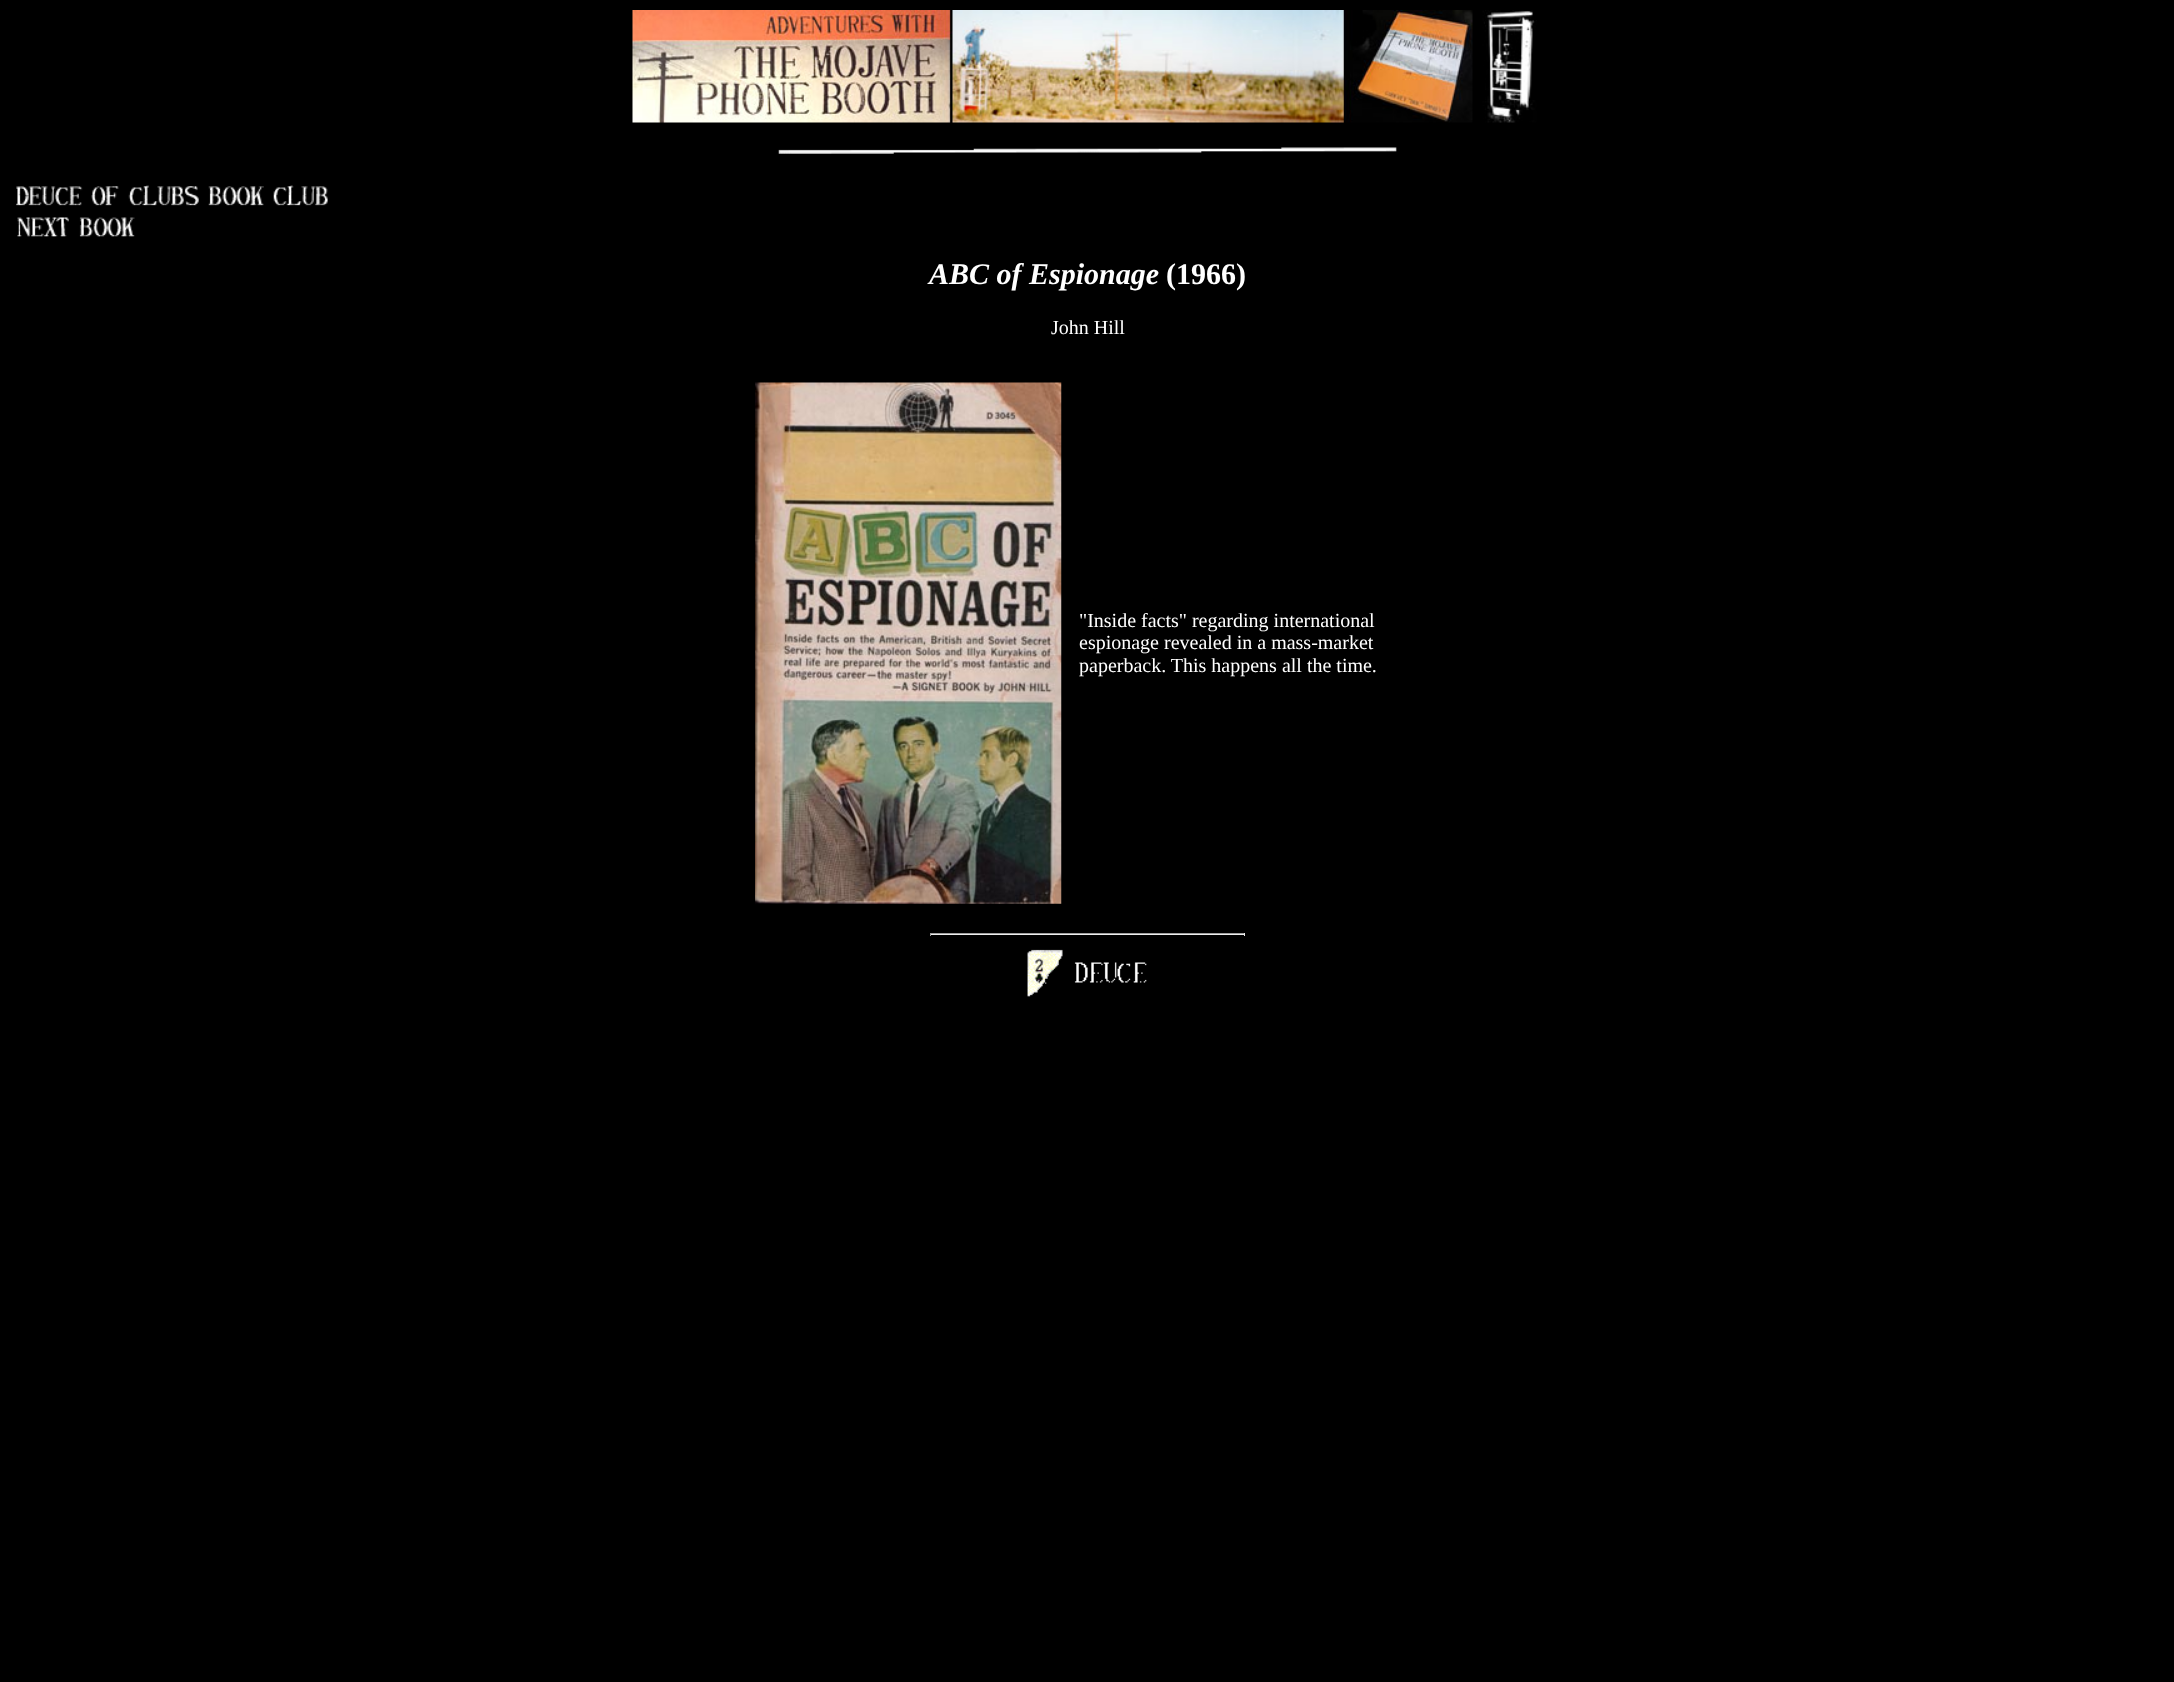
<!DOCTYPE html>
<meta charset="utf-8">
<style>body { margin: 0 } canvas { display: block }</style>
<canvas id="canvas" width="2174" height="1682"></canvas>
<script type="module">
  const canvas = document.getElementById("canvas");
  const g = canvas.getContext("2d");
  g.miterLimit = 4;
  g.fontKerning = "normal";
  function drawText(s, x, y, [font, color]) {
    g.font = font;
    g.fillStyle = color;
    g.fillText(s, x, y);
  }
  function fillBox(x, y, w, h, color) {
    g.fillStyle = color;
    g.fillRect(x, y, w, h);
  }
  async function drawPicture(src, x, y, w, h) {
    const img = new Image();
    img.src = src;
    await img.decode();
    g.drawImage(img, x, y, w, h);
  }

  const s1 = ["italic bold 30px Liberation Serif", "#FFFFFF"];
  const s2 = ["bold 30px Liberation Serif", "#FFFFFF"];
  const s3 = ["20px Liberation Serif", "#FFFFFF"];

  fillBox(0, 0, 2174, 1682, "#000000");
  await drawPicture("pic1.png", 632, 10, 905, 113);
  await drawPicture("pic2.png", 778, 147, 619, 7);
  await drawPicture("pic3.png", 16, 185, 312, 21);
  await drawPicture("pic4.png", 17, 217, 118, 20);
  drawText("ABC of Espionage", 929, 284, s1);
  drawText("(1966)", 1166, 284, s2);
  drawText("John Hill", 1051, 334, s3);
  await drawPicture("pic5.png", 755, 382, 307, 522);
  drawText("\"Inside facts\" regarding international", 1079, 627, s3);
  drawText("espionage revealed in a mass-market", 1079, 649, s3);
  drawText("paperback. This happens all the time.", 1079, 672, s3);
  fillBox(930, 933, 315, 1, "#9F9F9F");
  fillBox(1244, 933, 1, 3, "#EEEEEE");
  fillBox(930, 934, 315, 1, "#EEEEEE");
  fillBox(930, 933, 1, 3, "#9F9F9F");
  await drawPicture("pic6.png", 1027, 949, 36, 48);
  await drawPicture("pic7.png", 1074, 962, 73, 21);
</script>
